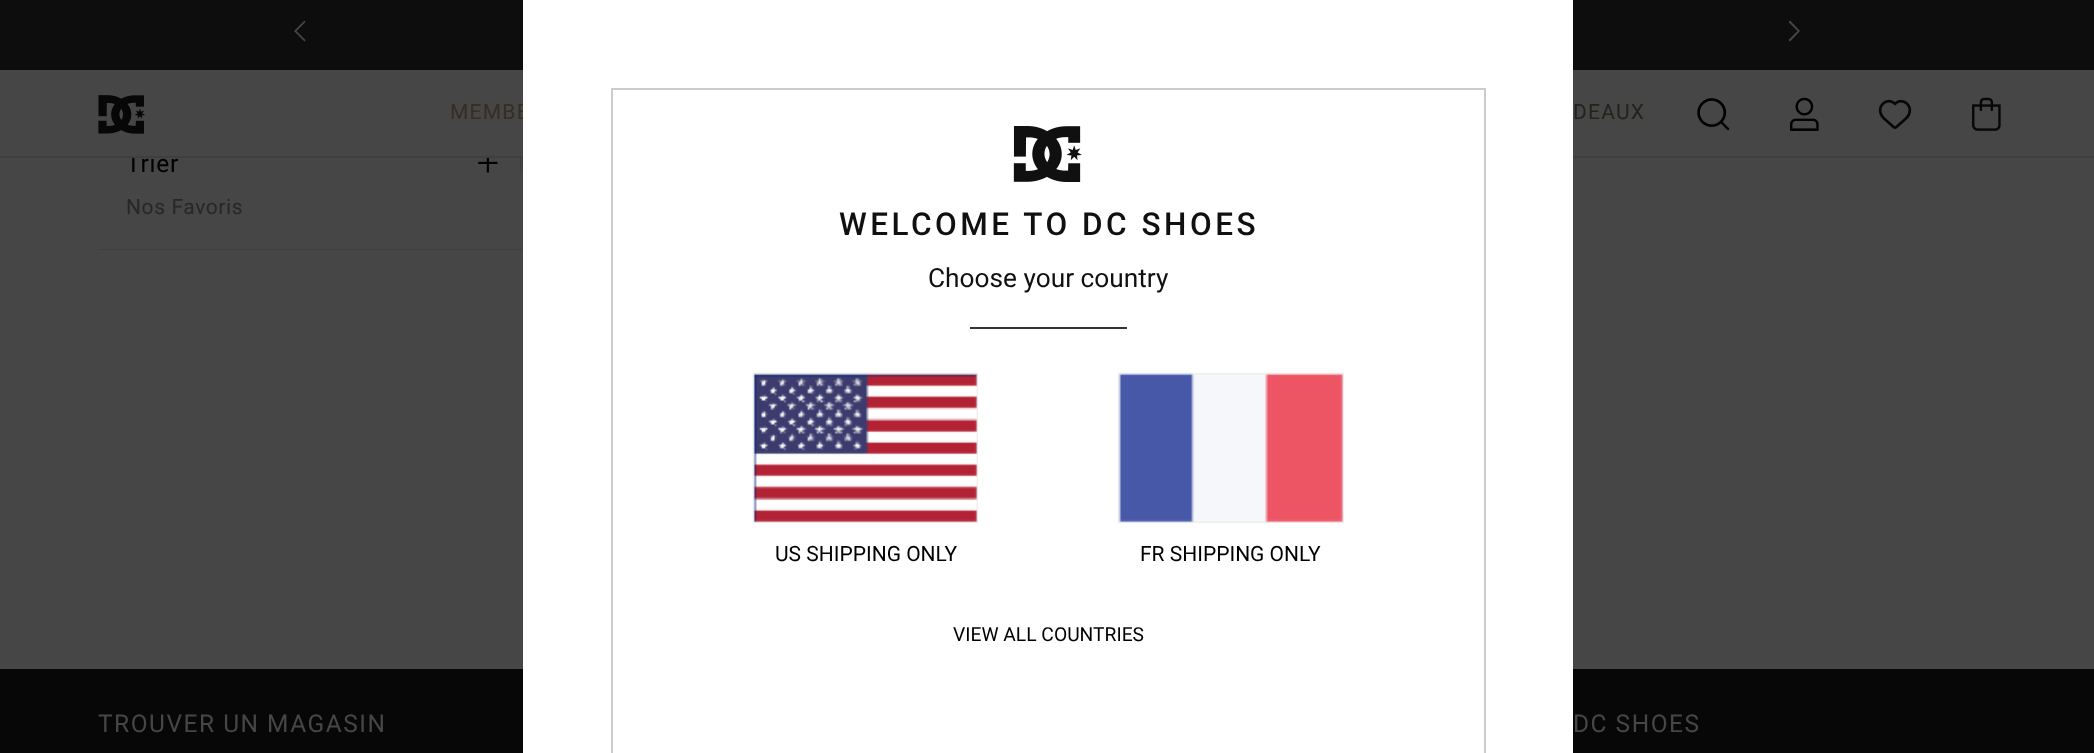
<!DOCTYPE html>
<meta charset="utf-8">
<style>body { margin: 0 } canvas { display: block }</style>
<canvas id="canvas" width="2094" height="753"></canvas>
<script type="module">
  const canvas = document.getElementById("canvas");
  const g = canvas.getContext("2d");
  g.miterLimit = 4;
  g.fontKerning = "normal";
  function drawText(s, x, y, [font, color]) {
    g.font = font;
    g.fillStyle = color;
    g.fillText(s, x, y);
  }
  function fillBox(x, y, w, h, color) {
    g.fillStyle = color;
    g.fillRect(x, y, w, h);
  }
  function fillRounded(x, y, w, h, r, color) {
    g.fillStyle = color;
    g.beginPath();
    g.roundRect(x, y, w, h, r);
    g.fill();
  }
  async function drawPicture(src, x, y, w, h) {
    const img = new Image();
    img.src = src;
    await img.decode();
    g.drawImage(img, x, y, w, h);
  }

  const s1 = ["24.5px Roboto", "#000000"];
  const s2 = ["21px Roboto", "#352E22"];
  const s3 = ["21px Roboto", "#20251C"];
  const s4 = ["21px Roboto", "#272727"];
  const s5 = ["24.5px Roboto", "#464646"];
  const s6 = ["500 31.5px Roboto", "#101010"];
  const s7 = ["26.25px Roboto", "#101010"];
  const s8 = ["21px Roboto", "#000000"];
  const s9 = ["19.25px Roboto", "#000000"];

  fillBox(0, 0, 2094, 753, "#464646");
  fillBox(0, 0, 2094, 70, "#0D0D0D");
  g.fillStyle = "#464646";
  g.beginPath();
  g.moveTo(305.5, 22);
  g.lineTo(304.5, 20.5);
  g.lineTo(294, 31);
  g.lineTo(304.5, 41.5);
  g.lineTo(305.5, 40);
  g.lineTo(296.5, 31);
  g.closePath();
  g.fill();
  g.beginPath();
  g.moveTo(1788.5, 40);
  g.lineTo(1790, 41.5);
  g.lineTo(1800, 31);
  g.lineTo(1790, 20.5);
  g.lineTo(1788.5, 22);
  g.lineTo(1797.5, 31);
  g.closePath();
  g.fill();
  g.letterSpacing = "0.75px";
  drawText("Trier", 126, 172, s1);
  fillRounded(520, 135, 10, 37, 5, "#424242");
  fillBox(126, 135, 404, 21, "#464646");
  fillBox(0, 156, 2094, 2, "#3F3F3F");
  await drawPicture("pic1.png", 98, 95, 47, 39);
  g.letterSpacing = "1.25px";
  drawText("MEMBE", 450, 119, s2);
  drawText("DEAUX", 1573, 119, s3);
  await drawPicture("pic2.png", 1697, 98, 33, 33);
  await drawPicture("pic3.png", 1790, 97, 29, 34);
  await drawPicture("pic4.png", 1878, 99, 34, 30);
  await drawPicture("pic5.png", 1972, 97, 29, 34);
  fillBox(98, 249, 427, 1, "#3F3F3F");
  await drawPicture("pic6.png", 478, 158, 20, 15);
  g.letterSpacing = "0.6px";
  drawText("Nos Favoris", 126, 214, s4);
  fillBox(0, 669, 2094, 84, "#070707");
  g.letterSpacing = "1.5px";
  drawText("TROUVER UN MAGASIN", 98, 732, s5);
  drawText("DC SHOES", 1573, 732, s5);
  fillBox(523, 0, 1050, 753, "#FFFFFF");
  g.strokeStyle = "#CCCCCC";
  g.lineWidth = 2;
  g.strokeRect(612, 89, 873, 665);
  await drawPicture("pic7.png", 1013, 126, 69, 56);
  g.letterSpacing = "3.5px";
  drawText("WELCOME TO DC SHOES", 839, 235, s6);
  g.letterSpacing = "0px";
  drawText("Choose your country", 928, 287, s7);
  fillBox(970, 327, 157, 2, "#333333");
  g.strokeStyle = "#EEEEEE";
  g.strokeRect(754, 374, 223, 148);
  await drawPicture("pic8.png", 752, 372, 226, 151);
  drawText("US SHIPPING ONLY", 775, 561, s8);
  g.strokeRect(1119, 374, 224, 148);
  await drawPicture("pic9.png", 1118, 372, 225, 151);
  drawText("FR SHIPPING ONLY", 1140, 561, s8);
  drawText("VIEW ALL COUNTRIES", 953, 641, s9);
</script>
